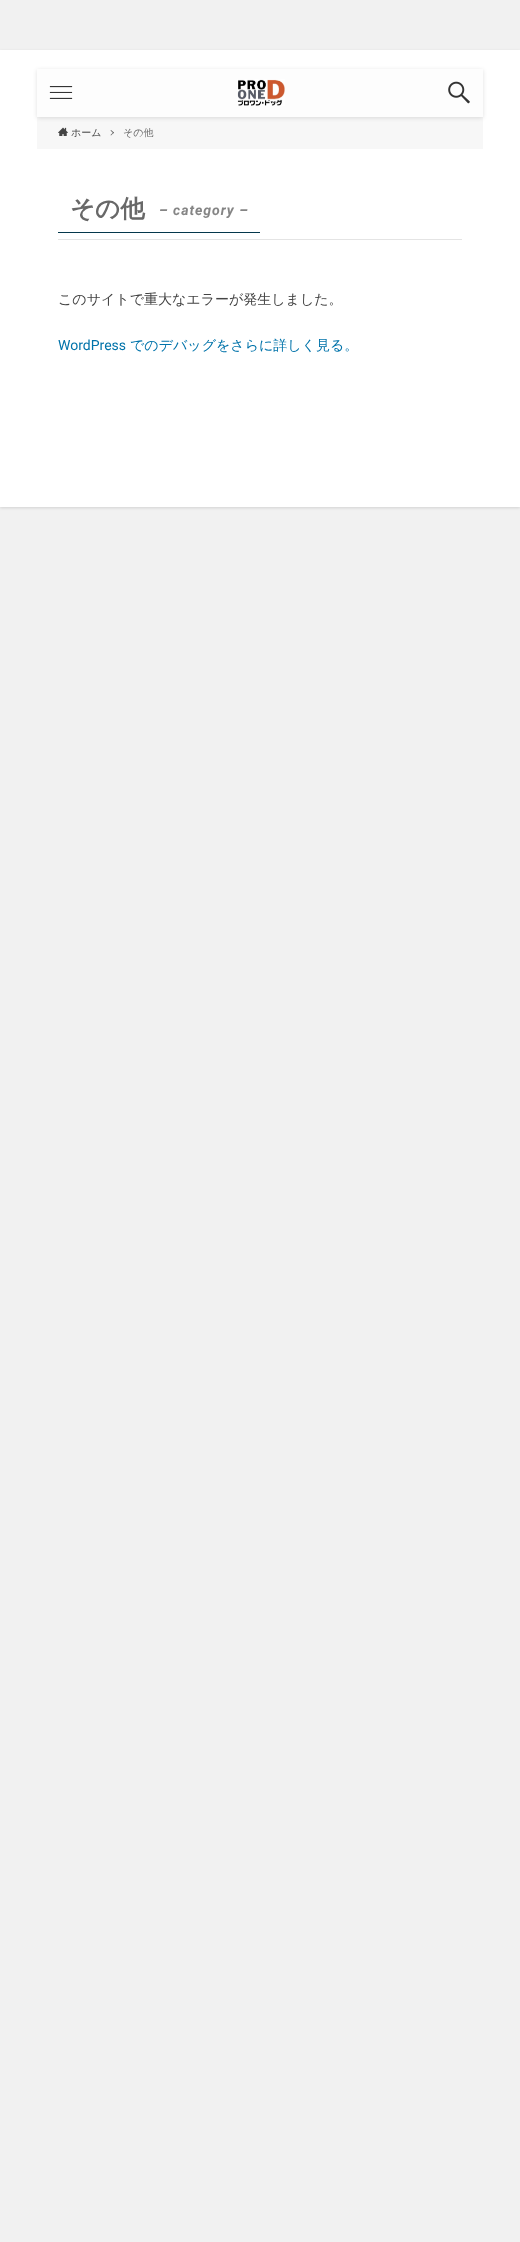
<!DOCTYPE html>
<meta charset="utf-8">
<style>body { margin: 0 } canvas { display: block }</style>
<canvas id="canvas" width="520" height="2242"></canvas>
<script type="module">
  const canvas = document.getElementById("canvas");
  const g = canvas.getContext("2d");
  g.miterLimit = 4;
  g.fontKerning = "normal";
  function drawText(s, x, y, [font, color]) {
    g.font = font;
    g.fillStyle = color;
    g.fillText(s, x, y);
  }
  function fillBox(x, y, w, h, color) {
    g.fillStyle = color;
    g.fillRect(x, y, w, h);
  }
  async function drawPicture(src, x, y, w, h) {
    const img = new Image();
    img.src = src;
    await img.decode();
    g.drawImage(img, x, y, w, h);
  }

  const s1 = ["500 10px WenQuanYi Zen Hei", "#444444"];
  const s2 = ["500 10px WenQuanYi Zen Hei", "#686868"];
  const s3 = ["bold 24.5px WenQuanYi Zen Hei", "#686868"];
  const s4 = ["italic bold 14px Roboto", "#858585"];
  const s5 = ["500 14px WenQuanYi Zen Hei", "#444444"];
  const s6 = ["14px Roboto", "#0073AA"];
  const s7 = ["500 14px WenQuanYi Zen Hei", "#0073AA"];

  fillBox(0, 0, 520, 2242, "#F1F1F1");
  g.fillStyle = "rgba(0, 0, 0, 0.13)";
  g.filter = "blur(1.5px)";
  g.beginPath();
  g.rect(0, 51, 520, 457);
  g.fill();
  g.filter = "none";
  fillBox(0, 50, 520, 457, "#FFFFFF");
  fillBox(37, 117, 446, 32, "#F7F7F7");
  g.fillStyle = "rgba(0, 0, 0, 0.12)";
  g.filter = "blur(2px)";
  g.beginPath();
  g.rect(37, 70, 446, 48);
  g.fill();
  g.filter = "none";
  fillBox(37, 69, 446, 48, "#FDFDFD");
  await drawPicture("pic1.png", 49, 86, 24, 13);
  await drawPicture("pic2.png", 237, 79, 48, 27);
  await drawPicture("pic3.png", 448, 81, 22, 23);
  await drawPicture("pic4.png", 58, 127, 10, 9);
  drawText("ホーム", 71, 136, s1);
  g.fillStyle = "#686868";
  g.beginPath();
  g.moveTo(111, 130);
  g.lineTo(114, 132.5);
  g.lineTo(113.5, 133.5);
  g.lineTo(110.5, 130.5);
  g.closePath();
  g.fill();
  g.beginPath();
  g.moveTo(113.5, 132);
  g.lineTo(114, 132.5);
  g.lineTo(111, 135.5);
  g.lineTo(110.5, 135);
  g.closePath();
  g.fill();
  drawText("その他", 123, 136, s2);
  fillBox(58, 239, 404, 1, "#E4E4E4");
  fillBox(58, 232, 202, 1, "#04384C");
  drawText("その他", 70, 217, s3);
  g.letterSpacing = "1px";
  drawText("– category –", 159, 215, s4);
  g.letterSpacing = "0px";
  drawText("このサイトで重大なエラーが発生しました。", 58, 304, s5);
  drawText("WordPress", 58, 350, s6);
  drawText("でのデバッグをさらに詳しく見る。", 130, 350, s7);
</script>
